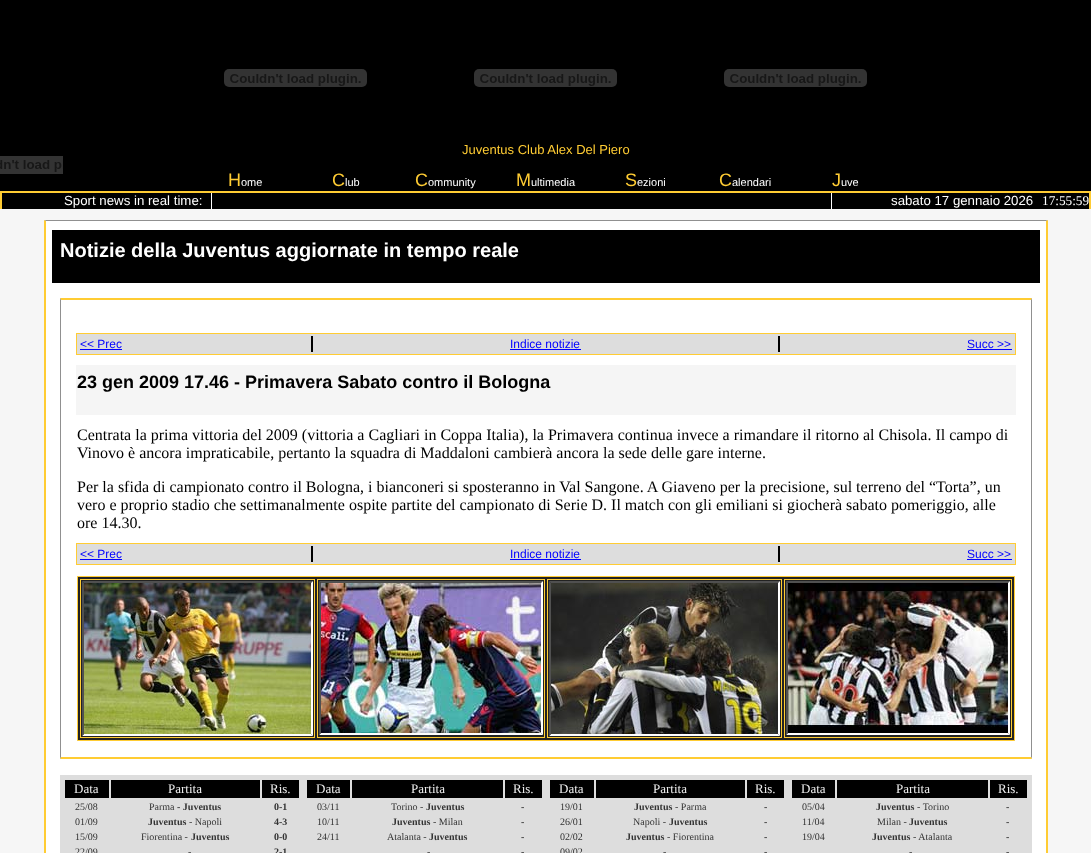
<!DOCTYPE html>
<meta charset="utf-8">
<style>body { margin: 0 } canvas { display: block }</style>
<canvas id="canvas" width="1091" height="853"></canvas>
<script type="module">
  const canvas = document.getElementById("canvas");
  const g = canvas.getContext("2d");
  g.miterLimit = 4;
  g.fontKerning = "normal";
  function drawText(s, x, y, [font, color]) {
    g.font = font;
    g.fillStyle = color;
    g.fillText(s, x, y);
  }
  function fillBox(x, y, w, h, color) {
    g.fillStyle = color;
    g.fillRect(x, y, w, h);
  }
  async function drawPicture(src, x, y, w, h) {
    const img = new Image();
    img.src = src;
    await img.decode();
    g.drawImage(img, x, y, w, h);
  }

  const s1 = ["13px Liberation Sans", "#FFCC33"];
  const s2 = ["18px Liberation Sans", "#FFCC33"];
  const s3 = ["11px Liberation Sans", "#FFFFFF"];
  const s4 = ["13.25px Liberation Sans", "#FFFFFF"];
  const s5 = ["13.25px Liberation Serif", "#FFFFFF"];
  const s6 = ["bold 20px Liberation Sans", "#FFFFFF"];
  const s7 = ["12px Liberation Sans", "#0000FF"];
  const s8 = ["bold 18px Liberation Sans", "#000000"];
  const s9 = ["16px Liberation Serif", "#000000"];
  const s10 = ["13px Liberation Serif", "#EEEEEE"];
  const s11 = ["10px Liberation Serif", "#333333"];
  const s12 = ["bold 10px Liberation Serif", "#333333"];

  fillBox(0, 0, 1091, 853, "#F6F6F6");
  fillBox(0, 0, 1091, 191, "#000000");
  await drawPicture("pic1.png", 224, 69, 143, 18);
  await drawPicture("pic1.png", 474, 69, 143, 18);
  await drawPicture("pic1.png", 724, 69, 143, 18);
  fillBox(0, 191, 1091, 2, "#FFCC33");
  drawText("Juventus Club Alex Del Piero", 462, 154, s1);
  await drawPicture("pic2.png", 0, 156, 63, 18);
  drawText("H", 228, 186, s2);
  drawText("ome", 241, 186, s3);
  drawText("C", 332, 186, s2);
  drawText("lub", 345, 186, s3);
  drawText("C", 415, 186, s2);
  drawText("ommunity", 428, 186, s3);
  drawText("M", 516, 186, s2);
  drawText("ultimedia", 531, 186, s3);
  drawText("S", 625, 186, s2);
  drawText("ezioni", 637, 186, s3);
  drawText("C", 719, 186, s2);
  drawText("alendari", 732, 186, s3);
  drawText("J", 832, 186, s2);
  drawText("uve", 841, 186, s3);
  fillBox(1089, 193, 2, 16, "#FFCC33");
  fillBox(0, 193, 2, 16, "#FFCC33");
  fillBox(2, 193, 209, 16, "#000000");
  drawText("Sport news in real time:", 64, 205, s4);
  fillBox(212, 193, 619, 16, "#000000");
  fillBox(831, 193, 1, 16, "#FFFFFF");
  fillBox(211, 193, 1, 16, "#FFFFFF");
  fillBox(832, 193, 257, 16, "#000000");
  drawText("sabato 17 gennaio 2026", 891, 205, s4);
  drawText("17:55:59", 1042, 205, s5);
  fillBox(46, 221, 1000, 632, "#FFFFFF");
  g.fillStyle = "#909090";
  g.beginPath();
  g.moveTo(44, 220);
  g.lineTo(1048, 220);
  g.lineTo(1046, 221);
  g.lineTo(46, 221);
  g.closePath();
  g.fill();
  g.fillStyle = "#FFCC33";
  g.beginPath();
  g.moveTo(1048, 220);
  g.lineTo(1048, 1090);
  g.lineTo(1046, 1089);
  g.lineTo(1046, 221);
  g.closePath();
  g.fill();
  g.beginPath();
  g.moveTo(44, 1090);
  g.lineTo(44, 220);
  g.lineTo(46, 221);
  g.lineTo(46, 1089);
  g.closePath();
  g.fill();
  fillBox(52, 230, 988, 53, "#000000");
  drawText("Notizie della Juventus aggiornate in tempo reale", 60, 257, s6);
  g.fillStyle = "#FFCC33";
  g.beginPath();
  g.moveTo(60, 298);
  g.lineTo(1032, 298);
  g.lineTo(1031, 300);
  g.lineTo(61, 300);
  g.closePath();
  g.fill();
  g.fillStyle = "#909090";
  g.beginPath();
  g.moveTo(1032, 298);
  g.lineTo(1032, 759);
  g.lineTo(1031, 757);
  g.lineTo(1031, 300);
  g.closePath();
  g.fill();
  g.fillStyle = "#FFCC33";
  g.beginPath();
  g.moveTo(1032, 759);
  g.lineTo(60, 759);
  g.lineTo(61, 757);
  g.lineTo(1031, 757);
  g.closePath();
  g.fill();
  g.fillStyle = "#909090";
  g.beginPath();
  g.moveTo(60, 759);
  g.lineTo(60, 298);
  g.lineTo(61, 300);
  g.lineTo(61, 757);
  g.closePath();
  g.fill();
  fillBox(76, 333, 940, 22, "#FFCC33");
  fillBox(77, 334, 938, 20, "#DDDDDD");
  fillBox(311, 336, 469, 16, "#000000");
  drawText("<< Prec", 80, 348, s7);
  fillBox(80, 349, 42, 1, "#0000FF");
  fillBox(313, 336, 465, 16, "#DDDDDD");
  drawText("Indice notizie", 510, 348, s7);
  fillBox(510, 349, 71, 1, "#0000FF");
  drawText("Succ >>", 967, 348, s7);
  fillBox(967, 349, 45, 1, "#0000FF");
  fillBox(76, 365, 940, 50, "#F5F5F5");
  drawText("23 gen 2009 17.46 - Primavera Sabato contro il Bologna", 77, 388, s8);
  drawText("Centrata la prima vittoria del 2009 (vittoria a Cagliari in Coppa Italia), la Primavera continua invece a rimandare il ritorno al Chisola. Il campo di", 77, 440, s9);
  drawText("Vinovo è ancora impraticabile, pertanto la squadra di Maddaloni cambierà ancora la sede delle gare interne.", 77, 458, s9);
  drawText("Per la sfida di campionato contro il Bologna, i bianconeri si sposteranno in Val Sangone. A Giaveno per la precisione, sul terreno del “Torta”, un", 77, 492, s9);
  drawText("vero e proprio stadio che settimanalmente ospite partite del campionato di Serie D. Il match con gli emiliani si giocherà sabato pomeriggio, alle", 77, 510, s9);
  drawText("ore 14.30.", 77, 528, s9);
  fillBox(76, 543, 940, 22, "#FFCC33");
  fillBox(77, 544, 938, 20, "#DDDDDD");
  fillBox(311, 546, 469, 16, "#000000");
  drawText("<< Prec", 80, 558, s7);
  fillBox(80, 559, 42, 1, "#0000FF");
  fillBox(313, 546, 465, 16, "#DDDDDD");
  drawText("Indice notizie", 510, 558, s7);
  fillBox(510, 559, 71, 1, "#0000FF");
  drawText("Succ >>", 967, 558, s7);
  fillBox(967, 559, 45, 1, "#0000FF");
  g.fillStyle = "#222222";
  g.beginPath();
  g.rect(77.5, 576.5, 937, 164);
  g.fill();
  g.strokeStyle = "#FFCC33";
  g.stroke();
  g.strokeRect(80.5, 579.5, 234, 158);
  g.fillStyle = "#505050";
  g.beginPath();
  g.moveTo(82, 581);
  g.lineTo(313, 581);
  g.lineTo(311, 583);
  g.lineTo(84, 583);
  g.closePath();
  g.fill();
  g.fillStyle = "#FFFFFF";
  g.beginPath();
  g.moveTo(313, 581);
  g.lineTo(313, 736);
  g.lineTo(311, 734);
  g.lineTo(311, 583);
  g.closePath();
  g.fill();
  g.beginPath();
  g.moveTo(313, 736);
  g.lineTo(82, 736);
  g.lineTo(84, 734);
  g.lineTo(311, 734);
  g.closePath();
  g.fill();
  g.fillStyle = "#505050";
  g.beginPath();
  g.moveTo(82, 736);
  g.lineTo(82, 581);
  g.lineTo(84, 583);
  g.lineTo(84, 734);
  g.closePath();
  g.fill();
  await drawPicture("pic3.png", 84, 583, 227, 151);
  g.strokeRect(317.5, 579.5, 227, 158);
  g.beginPath();
  g.moveTo(319, 581);
  g.lineTo(543, 581);
  g.lineTo(541, 583);
  g.lineTo(321, 583);
  g.closePath();
  g.fill();
  g.fillStyle = "#FFFFFF";
  g.beginPath();
  g.moveTo(543, 581);
  g.lineTo(543, 735);
  g.lineTo(541, 733);
  g.lineTo(541, 583);
  g.closePath();
  g.fill();
  g.beginPath();
  g.moveTo(543, 735);
  g.lineTo(319, 735);
  g.lineTo(321, 733);
  g.lineTo(541, 733);
  g.closePath();
  g.fill();
  g.fillStyle = "#505050";
  g.beginPath();
  g.moveTo(319, 735);
  g.lineTo(319, 581);
  g.lineTo(321, 583);
  g.lineTo(321, 733);
  g.closePath();
  g.fill();
  await drawPicture("pic4.png", 321, 583, 220, 150);
  g.strokeRect(547.5, 579.5, 234, 158);
  g.beginPath();
  g.moveTo(549, 581);
  g.lineTo(780, 581);
  g.lineTo(778, 583);
  g.lineTo(551, 583);
  g.closePath();
  g.fill();
  g.fillStyle = "#FFFFFF";
  g.beginPath();
  g.moveTo(780, 581);
  g.lineTo(780, 736);
  g.lineTo(778, 734);
  g.lineTo(778, 583);
  g.closePath();
  g.fill();
  g.beginPath();
  g.moveTo(780, 736);
  g.lineTo(549, 736);
  g.lineTo(551, 734);
  g.lineTo(778, 734);
  g.closePath();
  g.fill();
  g.fillStyle = "#505050";
  g.beginPath();
  g.moveTo(549, 736);
  g.lineTo(549, 581);
  g.lineTo(551, 583);
  g.lineTo(551, 734);
  g.closePath();
  g.fill();
  await drawPicture("pic5.png", 551, 583, 227, 151);
  g.strokeRect(784.5, 579.5, 227, 158);
  g.beginPath();
  g.moveTo(786, 581);
  g.lineTo(1010, 581);
  g.lineTo(1008, 583);
  g.lineTo(788, 583);
  g.closePath();
  g.fill();
  g.fillStyle = "#FFFFFF";
  g.beginPath();
  g.moveTo(1010, 581);
  g.lineTo(1010, 735);
  g.lineTo(1008, 733);
  g.lineTo(1008, 583);
  g.closePath();
  g.fill();
  g.beginPath();
  g.moveTo(1010, 735);
  g.lineTo(786, 735);
  g.lineTo(788, 733);
  g.lineTo(1008, 733);
  g.closePath();
  g.fill();
  g.fillStyle = "#505050";
  g.beginPath();
  g.moveTo(786, 735);
  g.lineTo(786, 581);
  g.lineTo(788, 583);
  g.lineTo(788, 733);
  g.closePath();
  g.fill();
  await drawPicture("pic6.png", 788, 583, 220, 150);
  fillBox(60, 775, 972, 78, "#DDDDDD");
  fillBox(65, 780, 44, 18, "#000000");
  drawText("Data", 74, 793, s10);
  fillBox(111, 780, 149, 18, "#000000");
  drawText("Partita", 168, 793, s10);
  fillBox(262, 780, 37, 18, "#000000");
  drawText("Ris.", 270, 793, s10);
  drawText("25/08", 75, 810, s11);
  drawText("Parma", 149, 810, s11);
  drawText("- Juventus", 177, 810, s12);
  drawText("0-1", 274, 810, s12);
  drawText("01/09", 75, 825, s11);
  drawText("Juventus", 148, 825, s12);
  drawText("- Napoli", 189, 825, s11);
  drawText("4-3", 274, 825, s12);
  drawText("15/09", 75, 840, s11);
  drawText("Fiorentina -", 141, 840, s11);
  drawText("Juventus", 191, 840, s12);
  drawText("0-0", 274, 840, s12);
  drawText("22/09", 75, 855, s11);
  drawText("-", 188, 855, s11);
  drawText("2-1", 274, 855, s12);
  fillBox(307, 780, 43, 18, "#000000");
  drawText("Data", 316, 793, s10);
  fillBox(352, 780, 151, 18, "#000000");
  drawText("Partita", 411, 793, s10);
  fillBox(505, 780, 37, 18, "#000000");
  drawText("Ris.", 513, 793, s10);
  drawText("03/11", 317, 810, s11);
  drawText("Torino -", 391, 810, s11);
  drawText("Juventus", 426, 810, s12);
  drawText("-", 521, 810, s12);
  drawText("10/11", 317, 825, s11);
  drawText("Juventus", 392, 825, s12);
  drawText("- Milan", 433, 825, s11);
  drawText("-", 521, 825, s12);
  drawText("24/11", 317, 840, s11);
  drawText("Atalanta -", 387, 840, s11);
  drawText("Juventus", 429, 840, s12);
  drawText("-", 521, 840, s12);
  drawText("-", 427, 855, s11);
  drawText("-", 521, 855, s12);
  fillBox(550, 780, 44, 18, "#000000");
  drawText("Data", 559, 793, s10);
  fillBox(596, 780, 149, 18, "#000000");
  drawText("Partita", 653, 793, s10);
  fillBox(747, 780, 37, 18, "#000000");
  drawText("Ris.", 755, 793, s10);
  drawText("19/01", 560, 810, s11);
  drawText("Juventus", 634, 810, s12);
  drawText("- Parma", 675, 810, s11);
  drawText("-", 764, 810, s12);
  drawText("26/01", 560, 825, s11);
  drawText("Napoli -", 633, 825, s11);
  drawText("Juventus", 669, 825, s12);
  drawText("-", 764, 825, s12);
  drawText("02/02", 560, 840, s11);
  drawText("Juventus", 626, 840, s12);
  drawText("- Fiorentina", 667, 840, s11);
  drawText("-", 764, 840, s12);
  drawText("09/02", 560, 855, s11);
  drawText("-", 663, 855, s11);
  drawText("-", 764, 855, s12);
  fillBox(792, 780, 43, 18, "#000000");
  drawText("Data", 801, 793, s10);
  fillBox(837, 780, 151, 18, "#000000");
  drawText("Partita", 896, 793, s10);
  fillBox(990, 780, 37, 18, "#000000");
  drawText("Ris.", 998, 793, s10);
  drawText("05/04", 802, 810, s11);
  drawText("Juventus", 876, 810, s12);
  drawText("- Torino", 917, 810, s11);
  drawText("-", 1006, 810, s12);
  drawText("11/04", 802, 825, s11);
  drawText("Milan -", 877, 825, s11);
  drawText("Juventus", 909, 825, s12);
  drawText("-", 1006, 825, s12);
  drawText("19/04", 802, 840, s11);
  drawText("Juventus", 872, 840, s12);
  drawText("- Atalanta", 913, 840, s11);
  drawText("-", 1006, 840, s12);
  drawText("-", 909, 855, s11);
  drawText("-", 1006, 855, s12);
</script>
